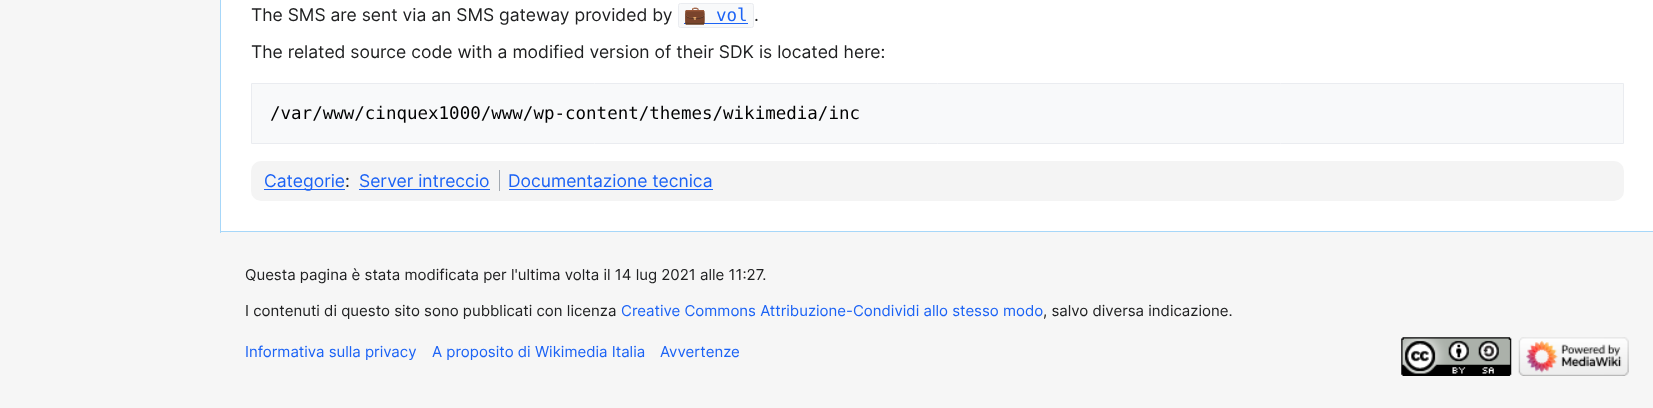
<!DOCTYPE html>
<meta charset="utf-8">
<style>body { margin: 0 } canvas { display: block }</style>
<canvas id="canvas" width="1653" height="408"></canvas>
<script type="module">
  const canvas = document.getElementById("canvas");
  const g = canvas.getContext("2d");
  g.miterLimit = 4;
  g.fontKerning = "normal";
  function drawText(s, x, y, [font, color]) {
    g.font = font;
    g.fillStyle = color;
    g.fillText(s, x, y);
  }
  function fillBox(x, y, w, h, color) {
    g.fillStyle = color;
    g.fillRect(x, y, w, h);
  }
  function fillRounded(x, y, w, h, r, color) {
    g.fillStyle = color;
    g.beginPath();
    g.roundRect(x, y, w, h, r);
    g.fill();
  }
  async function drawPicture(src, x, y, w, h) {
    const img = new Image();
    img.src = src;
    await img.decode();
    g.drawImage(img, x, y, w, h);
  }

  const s1 = ["17.5px Inter", "#202122"];
  const s2 = ["17.5px Noto Color Emoji", "#1C63F5"];
  const s3 = ["17.5px DejaVu Sans Mono", "#1C63F5"];
  const s4 = ["17.5px DejaVu Sans Mono", "#000000"];
  const s5 = ["17.5px Inter", "#1C63F5"];
  const s6 = ["15px Inter", "#202122"];
  const s7 = ["15px Inter", "#1C63F5"];

  fillBox(0, 0, 1653, 408, "#F6F6F6");
  fillBox(221, 0, 1432, 231, "#FFFFFF");
  fillBox(220, 231, 1433, 1, "#A7D7F9");
  fillBox(220, 0, 1, 233, "#A7D7F9");
  drawText("The SMS are sent via an SMS gateway provided by", 251, 21, s1);
  g.fillStyle = "#F8F9FA";
  g.beginPath();
  g.roundRect(678.5, 3.5, 75, 24, 2);
  g.fill();
  g.strokeStyle = "#EAECF0";
  g.stroke();
  fillBox(684, 23, 64, 1, "#1C63F5");
  drawText("💼", 684, 21, s2);
  drawText("vol", 716, 21, s3);
  drawText(".", 754, 21, s1);
  drawText("The related source code with a modified version of their SDK is located here:", 251, 58, s1);
  g.fillStyle = "#F8F9FA";
  g.beginPath();
  g.rect(251.5, 83.5, 1372, 60);
  g.fill();
  g.stroke();
  drawText("/var/www/cinquex1000/www/wp-content/themes/wikimedia/inc", 270, 119, s4);
  fillRounded(251, 161, 1373, 40, 10, "#F4F4F4");
  fillBox(264, 189, 81, 1, "#1C63F5");
  drawText("Categorie", 264, 187, s5);
  drawText(":", 345, 187, s1);
  drawText("Server intreccio", 359, 187, s5);
  fillBox(359, 189, 131, 1, "#1C63F5");
  fillBox(499, 170, 1, 21, "#A2A9B1");
  drawText("Documentazione tecnica", 508, 187, s5);
  fillBox(509, 189, 204, 1, "#1C63F5");
  drawText("Questa pagina è stata modificata per l'ultima volta il 14 lug 2021 alle 11:27.", 245, 280, s6);
  drawText("I contenuti di questo sito sono pubblicati con licenza", 245, 316, s6);
  drawText("Creative Commons Attribuzione-Condividi allo stesso modo", 621, 316, s7);
  drawText(", salvo diversa indicazione.", 1043, 316, s6);
  drawText("Informativa sulla privacy", 245, 357, s7);
  drawText("A proposito di Wikimedia Italia", 432, 357, s7);
  drawText("Avvertenze", 660, 357, s7);
  await drawPicture("pic1.png", 1401, 337, 111, 39);
  await drawPicture("pic2.png", 1518, 337, 111, 39);
</script>
